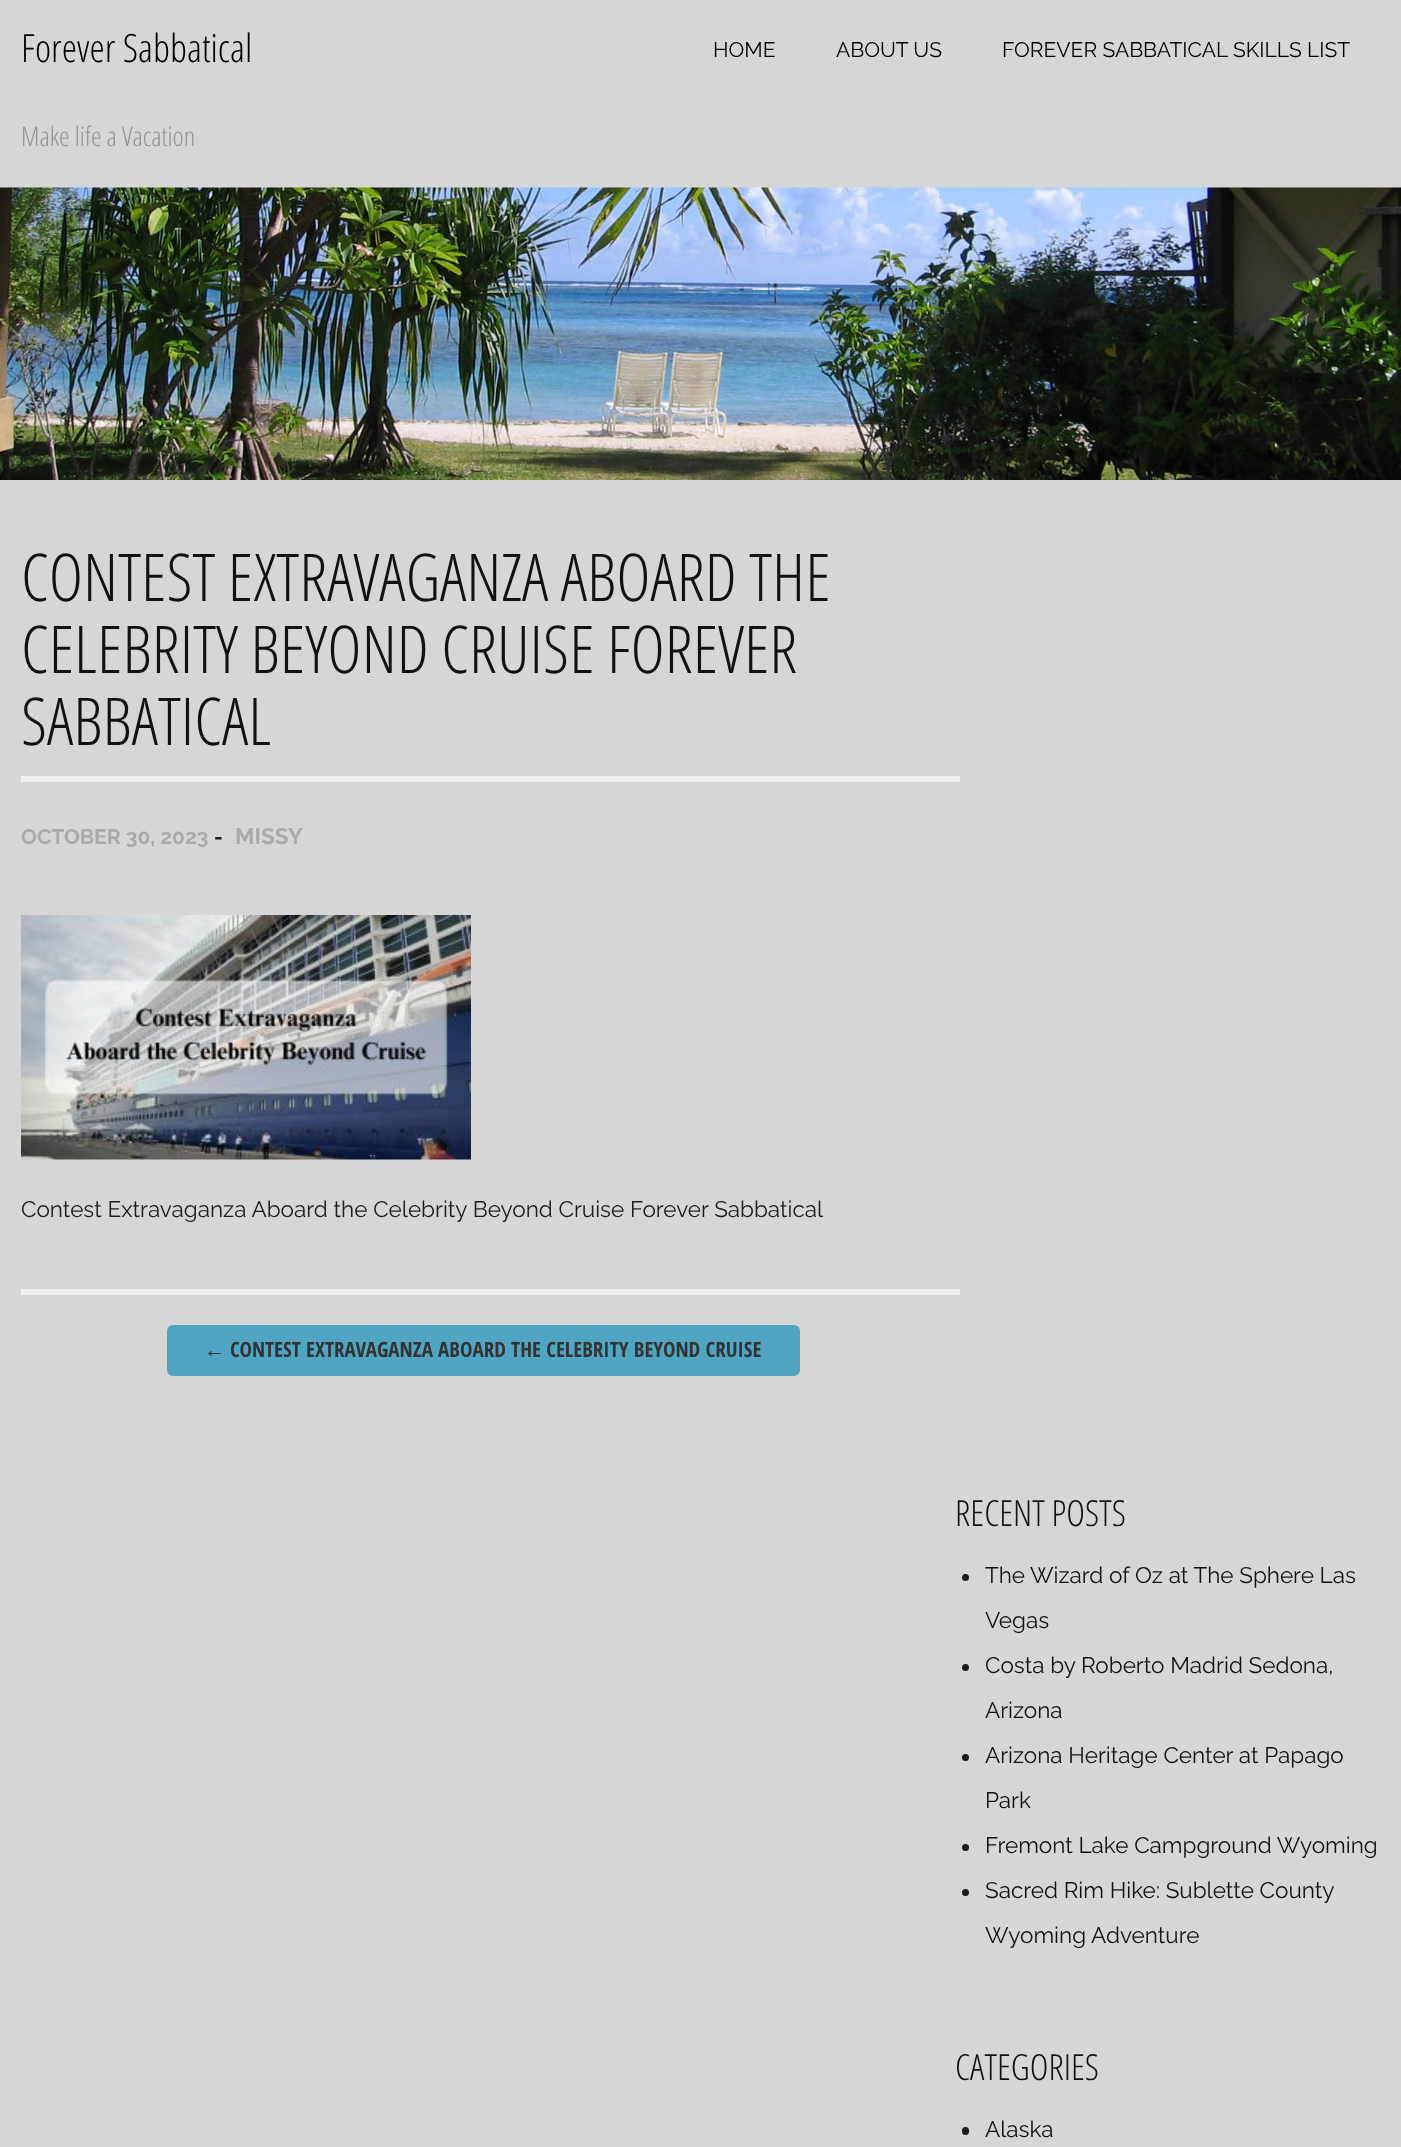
<!DOCTYPE html>
<meta charset="utf-8">
<style>body { margin: 0 } canvas { display: block }</style>
<canvas id="canvas" width="1401" height="2147"></canvas>
<script type="module">
  const canvas = document.getElementById("canvas");
  const g = canvas.getContext("2d");
  g.miterLimit = 4;
  g.fontKerning = "normal";
  function drawText(s, x, y, [font, color]) {
    g.font = font;
    g.fillStyle = color;
    g.fillText(s, x, y);
  }
  function fillBox(x, y, w, h, color) {
    g.fillStyle = color;
    g.fillRect(x, y, w, h);
  }
  function fillRounded(x, y, w, h, r, color) {
    g.fillStyle = color;
    g.beginPath();
    g.roundRect(x, y, w, h, r);
    g.fill();
  }
  async function drawPicture(src, x, y, w, h) {
    const img = new Image();
    img.src = src;
    await img.decode();
    g.drawImage(img, x, y, w, h);
  }

  const s1 = ["300 39px Open Sans Condensed", "#000000"];
  const s2 = ["300 27px Open Sans Condensed", "#939393"];
  const s3 = ["21px Raleway", "#000000"];
  const s4 = ["300 66px Open Sans Condensed", "#111111"];
  const s5 = ["bold 21px Raleway", "#AAAAAA"];
  const s6 = ["bold 21px Raleway", "#1C1C1C"];
  const s7 = ["bold 22.5px Raleway", "#AAAAAA"];
  const s8 = ["22.5px Raleway", "#1C1C1C"];
  const s9 = ["bold 21px Liberation Sans", "#333333"];
  const s10 = ["bold 21px Open Sans Condensed", "#333333"];
  const s11 = ["300 36px Open Sans Condensed", "#111111"];
  const s12 = ["22.5px Raleway", "#111111"];

  fillBox(0, 0, 1401, 2147, "#D6D6D6");
  drawText("Forever Sabbatical", 21, 62, s1);
  drawText("Make life a Vacation", 21, 146, s2);
  drawText("HOME", 713, 57, s3);
  drawText("ABOUT US", 836, 57, s3);
  drawText("FOREVER SABBATICAL SKILLS LIST", 1002, 57, s3);
  await drawPicture("pic1.png", 0, 187, 1401, 293);
  fillBox(21, 776, 939, 6, "#EEEEEE");
  drawText("CONTEST EXTRAVAGANZA ABOARD THE", 21, 601, s4);
  drawText("CELEBRITY BEYOND CRUISE FOREVER", 21, 673, s4);
  drawText("SABBATICAL", 21, 745, s4);
  drawText("OCTOBER 30, 2023", 21, 844, s5);
  drawText("-", 214, 844, s6);
  drawText("MISSY", 235, 844, s7);
  await drawPicture("pic2.png", 21, 915, 450, 245);
  drawText("Contest Extravaganza Aboard the Celebrity Beyond Cruise Forever Sabbatical", 21, 1217, s8);
  fillBox(21, 1289, 939, 6, "#EEEEEE");
  fillRounded(167, 1325, 633, 51, 6, "#50A6C2");
  drawText("←", 204, 1357, s9);
  drawText("CONTEST EXTRAVAGANZA ABOARD THE CELEBRITY BEYOND CRUISE", 230, 1357, s10);
  drawText("RECENT POSTS", 955, 1526, s11);
  g.fillStyle = "#1C1C1C";
  g.beginPath();
  g.arc(965.5, 1577.5, 3.5, 0, Math.PI * 2);
  g.fill();
  drawText("The Wizard of Oz at The Sphere Las", 985, 1583, s12);
  drawText("Vegas", 985, 1628, s12);
  g.fillStyle = "#1C1C1C";
  g.beginPath();
  g.arc(965.5, 1667.5, 3.5, 0, Math.PI * 2);
  g.fill();
  drawText("Costa by Roberto Madrid Sedona,", 985, 1673, s12);
  drawText("Arizona", 985, 1718, s12);
  g.fillStyle = "#1C1C1C";
  g.beginPath();
  g.arc(965.5, 1757.5, 3.5, 0, Math.PI * 2);
  g.fill();
  drawText("Arizona Heritage Center at Papago", 985, 1763, s12);
  drawText("Park", 985, 1808, s12);
  g.fillStyle = "#1C1C1C";
  g.beginPath();
  g.arc(965.5, 1847.5, 3.5, 0, Math.PI * 2);
  g.fill();
  drawText("Fremont Lake Campground Wyoming", 985, 1853, s12);
  g.fillStyle = "#1C1C1C";
  g.beginPath();
  g.arc(965.5, 1892.5, 3.5, 0, Math.PI * 2);
  g.fill();
  drawText("Sacred Rim Hike: Sublette County", 985, 1898, s12);
  drawText("Wyoming Adventure", 985, 1943, s12);
  drawText("CATEGORIES", 955, 2080, s11);
  fillRounded(962, 2127, 7, 8, 3.5, "#1C1C1C");
  drawText("Alaska", 985, 2137, s12);
</script>
